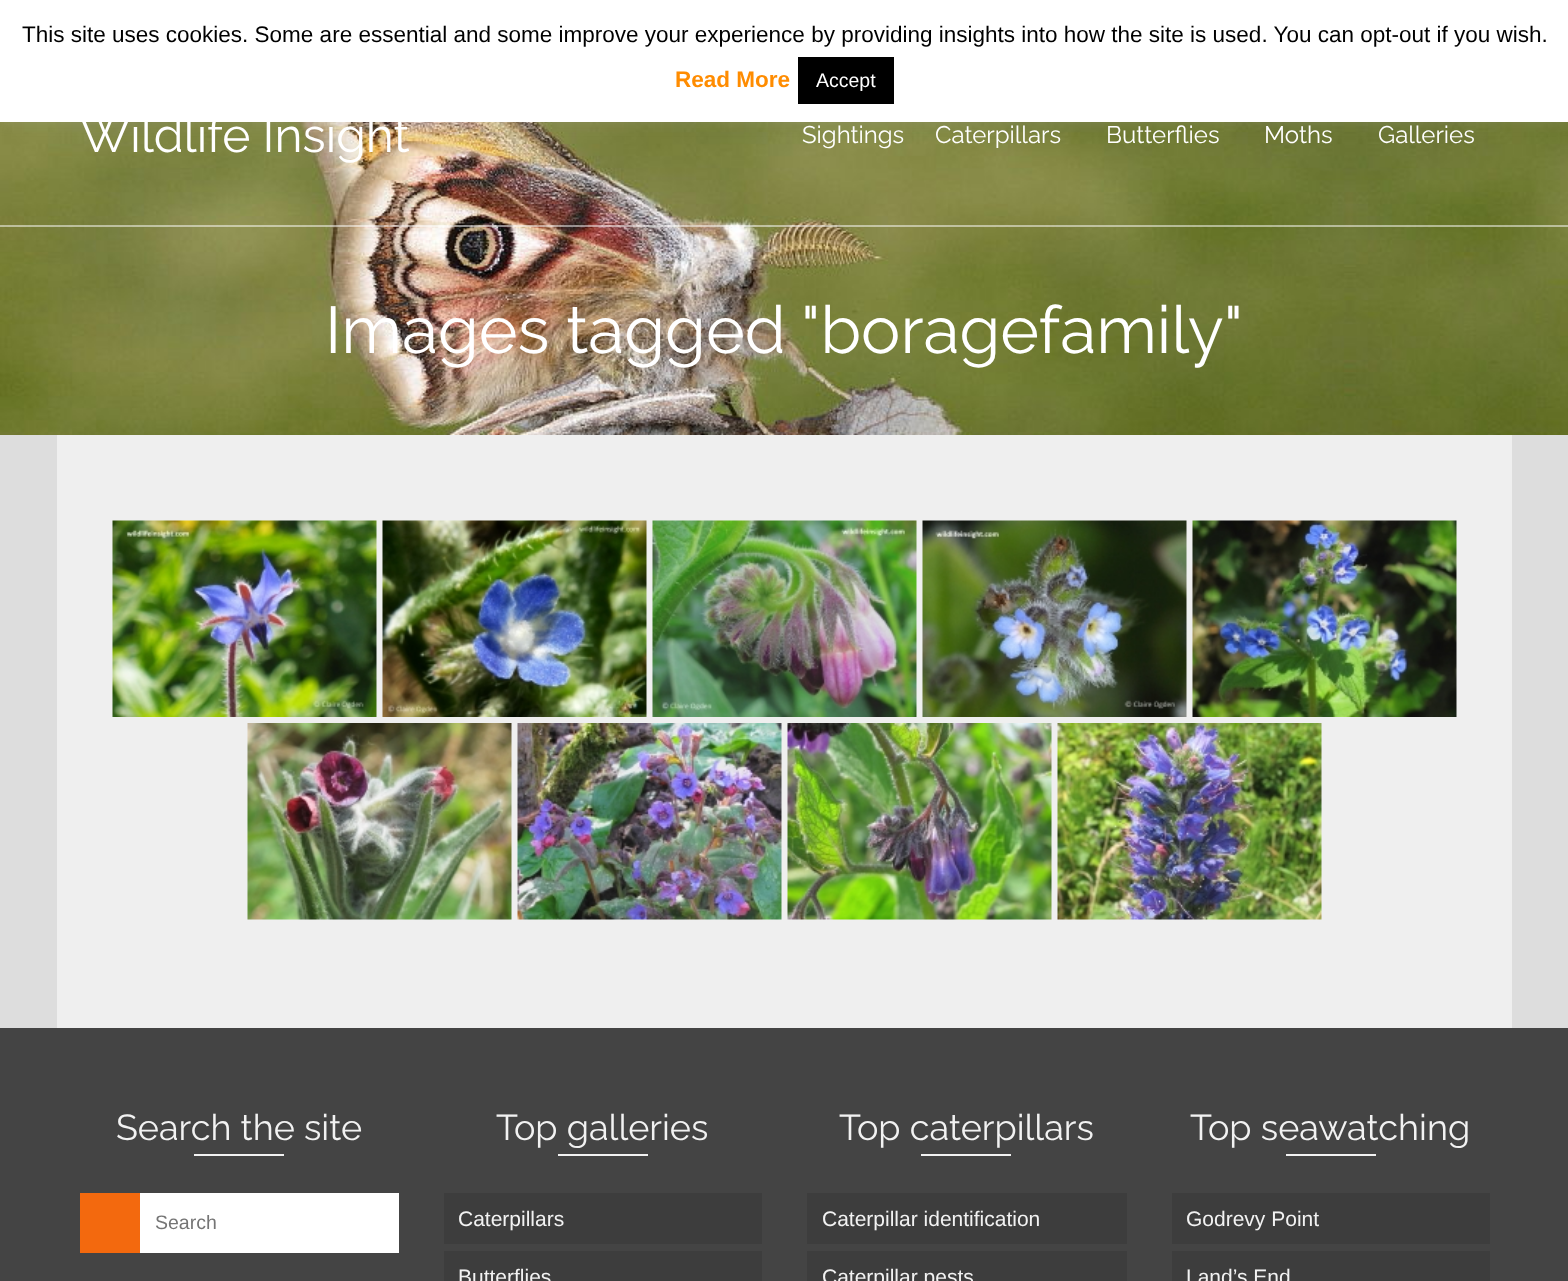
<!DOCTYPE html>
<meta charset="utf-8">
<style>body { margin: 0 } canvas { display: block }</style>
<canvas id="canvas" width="1568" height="1281"></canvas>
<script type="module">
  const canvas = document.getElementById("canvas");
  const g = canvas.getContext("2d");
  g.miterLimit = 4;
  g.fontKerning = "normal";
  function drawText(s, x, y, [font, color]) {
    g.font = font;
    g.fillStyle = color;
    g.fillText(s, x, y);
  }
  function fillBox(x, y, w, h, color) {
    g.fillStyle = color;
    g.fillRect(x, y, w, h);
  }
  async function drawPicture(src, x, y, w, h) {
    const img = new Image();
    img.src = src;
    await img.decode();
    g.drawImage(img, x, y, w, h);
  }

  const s1 = ["22.5px Liberation Sans", "#000000"];
  const s2 = ["bold 22.5px Liberation Sans", "#FF8C00"];
  const s3 = ["19.5px Liberation Sans", "#FFFFFF"];
  const s4 = ["100 48px Raleway", "#FFFFFF"];
  const s5 = ["100 24px Raleway", "#FFFFFF"];
  const s6 = ["100 66px Raleway", "#FFFFFF"];
  const s7 = ["100 36px Raleway", "#F2F2F2"];
  const s8 = ["19.5px Liberation Sans", "#757575"];
  const s9 = ["21px Liberation Sans", "#F2F2F2"];

  fillBox(0, 0, 1568, 1281, "#DDDDDD");
  await drawPicture("pic1.png", 0, 122, 1568, 313);
  g.fillStyle = "rgba(172, 171, 171, 0.3)";
  g.filter = "blur(7.5px)";
  g.beginPath();
  g.rect(0, -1, 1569, 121);
  g.fill();
  g.filter = "none";
  fillBox(0, 0, 1568, 122, "#FFFFFF");
  drawText("This site uses cookies. Some are essential and some improve your experience by providing insights into how the site is used. You can opt-out if you wish.", 22, 42, s1);
  drawText("Read More", 675, 87, s2);
  fillBox(798, 57, 96, 47, "#000000");
  drawText("Accept", 816, 87, s3);
  fillBox(0, 225, 1568, 2, "rgba(255, 255, 255, 0.5)");
  drawText("Wildlife Insight", 80, 152, s4);
  drawText("Sightings", 802, 143, s5);
  drawText("Caterpillars", 935, 143, s5);
  drawText("Butterflies", 1106, 143, s5);
  drawText("Moths", 1264, 143, s5);
  drawText("Galleries", 1378, 143, s5);
  drawText("Images tagged \"boragefamily\"", 325, 353, s6);
  fillBox(57, 435, 1455, 593, "#EFEFEF");
  await drawPicture("pic2.png", 112, 520, 265, 197);
  await drawPicture("pic3.png", 382, 520, 265, 197);
  await drawPicture("pic4.png", 652, 520, 265, 197);
  await drawPicture("pic5.png", 922, 520, 265, 197);
  await drawPicture("pic6.png", 1192, 520, 265, 197);
  await drawPicture("pic7.png", 247, 723, 265, 197);
  await drawPicture("pic8.png", 517, 723, 265, 197);
  await drawPicture("pic9.png", 787, 723, 265, 197);
  await drawPicture("pic10.png", 1057, 723, 265, 197);
  fillBox(0, 1028, 1568, 253, "#444444");
  drawText("Search the site", 116, 1140, s7);
  fillBox(194, 1154, 90, 2, "#F2F2F2");
  fillBox(80, 1193, 60, 60, "#F3690E");
  fillBox(140, 1193, 259, 60, "#FFFFFF");
  drawText("Search", 155, 1229, s8);
  drawText("Top galleries", 496, 1140, s7);
  fillBox(558, 1154, 90, 2, "#F2F2F2");
  fillBox(444, 1193, 318, 51, "#3D3D3D");
  drawText("Caterpillars", 458, 1226, s9);
  fillBox(444, 1251, 318, 30, "#3D3D3D");
  drawText("Butterflies", 458, 1284, s9);
  drawText("Top caterpillars", 839, 1140, s7);
  fillBox(921, 1154, 90, 2, "#F2F2F2");
  fillBox(807, 1193, 320, 51, "#3D3D3D");
  drawText("Caterpillar identification", 822, 1226, s9);
  fillBox(807, 1251, 320, 30, "#3D3D3D");
  drawText("Caterpillar pests", 822, 1284, s9);
  drawText("Top seawatching", 1190, 1140, s7);
  fillBox(1286, 1154, 90, 2, "#F2F2F2");
  fillBox(1172, 1193, 318, 51, "#3D3D3D");
  drawText("Godrevy Point", 1186, 1226, s9);
  fillBox(1172, 1251, 318, 30, "#3D3D3D");
  drawText("Land’s End", 1186, 1284, s9);
</script>
